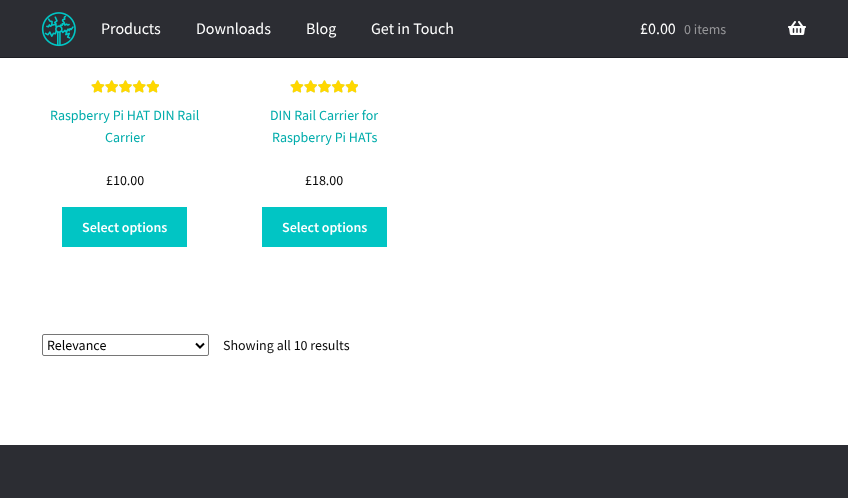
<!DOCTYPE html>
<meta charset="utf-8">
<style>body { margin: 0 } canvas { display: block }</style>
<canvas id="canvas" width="848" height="498"></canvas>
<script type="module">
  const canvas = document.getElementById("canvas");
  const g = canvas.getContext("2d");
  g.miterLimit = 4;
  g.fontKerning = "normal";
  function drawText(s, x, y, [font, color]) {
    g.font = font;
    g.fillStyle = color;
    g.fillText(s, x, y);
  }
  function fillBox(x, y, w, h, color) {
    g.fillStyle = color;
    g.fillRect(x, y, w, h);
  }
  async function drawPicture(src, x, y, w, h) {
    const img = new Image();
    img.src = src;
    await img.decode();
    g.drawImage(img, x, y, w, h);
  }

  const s1 = ["16px Source Sans Pro", "#FFFFFF"];
  const s2 = ["14px Source Sans Pro", "#969699"];
  const s3 = ["14px Source Sans Pro", "#00ACAB"];
  const s4 = ["14px Source Sans Pro", "#0A0A0A"];
  const s5 = ["600 14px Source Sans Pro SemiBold", "#FFFFFF"];
  const s6 = ["14px Source Sans Pro", "#000000"];

  fillBox(0, 0, 848, 498, "#FFFFFF");
  fillBox(0, 0, 848, 57, "#2C2D33");
  fillBox(0, 57, 848, 1, "#1D1E24");
  await drawPicture("pic1.png", 41, 12, 35, 35);
  drawText("Products", 101, 34, s1);
  drawText("Downloads", 196, 34, s1);
  drawText("Blog", 306, 34, s1);
  drawText("Get in Touch", 371, 34, s1);
  drawText("£0.00", 640, 34, s1);
  drawText("0 items", 684, 34, s2);
  await drawPicture("pic2.png", 788, 21, 18, 14);
  await drawPicture("pic3.png", 91, 80, 68, 13);
  await drawPicture("pic4.png", 91, 80, 68, 13);
  drawText("Raspberry Pi HAT DIN Rail", 50, 120, s3);
  drawText("Carrier", 105, 142, s3);
  drawText("£10.00", 106, 185, s4);
  fillBox(62, 207, 125, 40, "#01C5C4");
  drawText("Select options", 82, 232, s5);
  await drawPicture("pic3.png", 290, 80, 68, 13);
  await drawPicture("pic4.png", 290, 80, 68, 13);
  drawText("DIN Rail Carrier for", 270, 120, s3);
  drawText("Raspberry Pi HATs", 272, 142, s3);
  drawText("£18.00", 305, 185, s4);
  fillBox(262, 207, 125, 40, "#01C5C4");
  drawText("Select options", 282, 232, s5);
  g.beginPath();
  g.roundRect(42.5, 334.5, 166, 21, 1.5);
  g.strokeStyle = "#767676";
  g.stroke();
  g.beginPath();
  g.moveTo(196, 343.5);
  g.lineTo(200, 347.5);
  g.lineTo(204, 343.5);
  g.strokeStyle = "#000000";
  g.lineWidth = 2;
  g.stroke();
  drawText("Relevance", 47, 350, s6);
  drawText("Showing all 10 results", 223, 350, s4);
  fillBox(0, 445, 848, 53, "#2C2D33");
</script>
